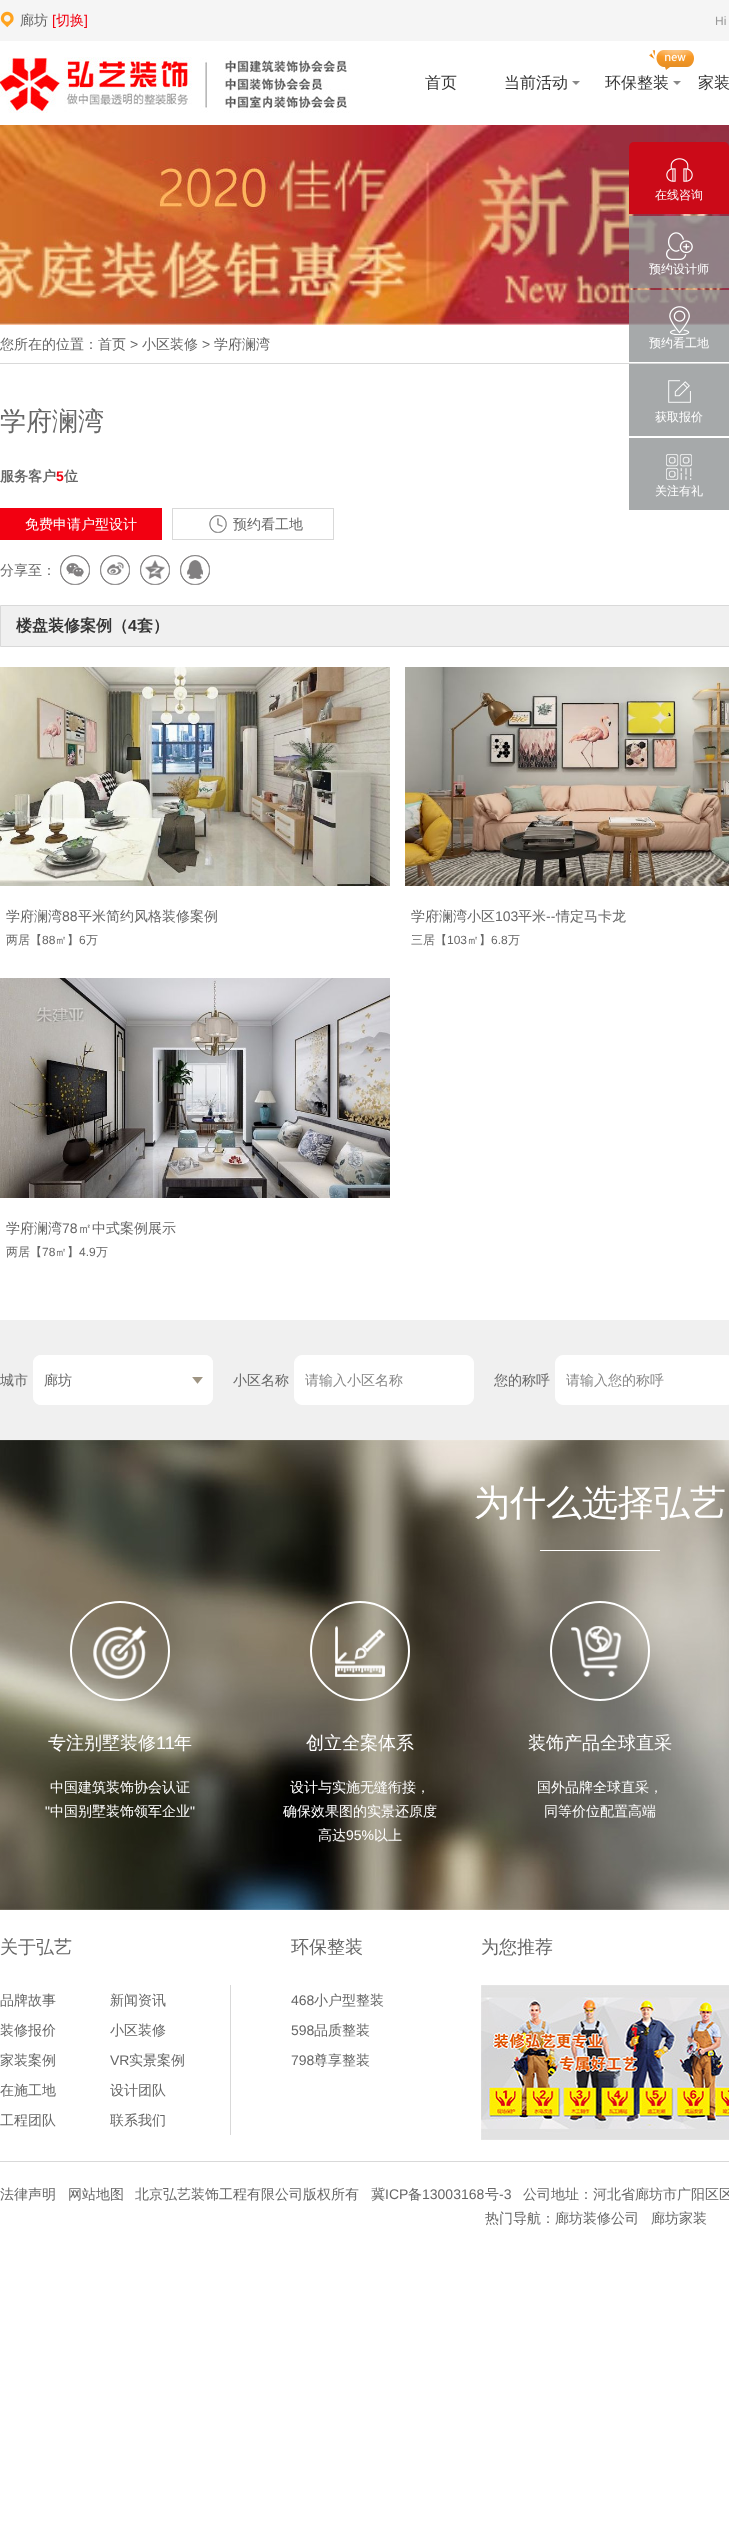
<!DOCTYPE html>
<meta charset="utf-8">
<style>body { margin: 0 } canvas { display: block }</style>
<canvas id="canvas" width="729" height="2523"></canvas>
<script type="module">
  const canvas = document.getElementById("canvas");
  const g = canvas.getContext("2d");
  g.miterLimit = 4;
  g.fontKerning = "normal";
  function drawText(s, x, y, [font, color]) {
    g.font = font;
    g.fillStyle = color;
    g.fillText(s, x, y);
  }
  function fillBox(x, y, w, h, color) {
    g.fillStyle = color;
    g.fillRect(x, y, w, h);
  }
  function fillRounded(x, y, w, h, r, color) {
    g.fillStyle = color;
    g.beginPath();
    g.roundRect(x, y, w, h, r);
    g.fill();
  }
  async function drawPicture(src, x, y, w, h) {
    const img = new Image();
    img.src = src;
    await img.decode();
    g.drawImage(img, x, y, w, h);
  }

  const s1 = ["500 14px WenQuanYi Zen Hei", "#666666"];
  const s2 = ["14px Liberation Sans", "#F20010"];
  const s3 = ["500 14px WenQuanYi Zen Hei", "#F20010"];
  const s4 = ["12px Liberation Sans", "#999999"];
  const s5 = ["500 16px WenQuanYi Zen Hei", "#333333"];
  const s6 = ["14px Liberation Sans", "#666666"];
  const s7 = ["500 12px WenQuanYi Zen Hei", "#FFFFFF"];
  const s8 = ["500 26px WenQuanYi Zen Hei", "#666666"];
  const s9 = ["bold 14px WenQuanYi Zen Hei", "#666666"];
  const s10 = ["bold 14px Liberation Sans", "#F20010"];
  const s11 = ["500 14px WenQuanYi Zen Hei", "#FFFFFF"];
  const s12 = ["bold 16px WenQuanYi Zen Hei", "#333333"];
  const s13 = ["bold 16px Liberation Sans", "#333333"];
  const s14 = ["500 12px WenQuanYi Zen Hei", "#666666"];
  const s15 = ["12px Liberation Sans", "#666666"];
  const s16 = ["500 14px WenQuanYi Zen Hei", "#888888"];
  const s17 = ["500 36px WenQuanYi Zen Hei", "#FFFFFF"];
  const s18 = ["500 18px WenQuanYi Zen Hei", "#FFFFFF"];
  const s19 = ["18px Liberation Sans", "#FFFFFF"];
  const s20 = ["14px Liberation Sans", "#FFFFFF"];
  const s21 = ["500 18px WenQuanYi Zen Hei", "#666666"];

  fillBox(0, 0, 729, 2523, "#FFFFFF");
  fillBox(0, 0, 729, 41, "#F5F5F5");
  await drawPicture("pic1.png", 0, 11, 14, 17);
  drawText("廊坊", 20, 25, s1);
  drawText("[", 52, 25, s2);
  drawText("切换", 56, 25, s3);
  drawText("]", 84, 25, s2);
  drawText("Hi", 715, 25, s4);
  await drawPicture("pic2.png", 0, 57, 350, 56);
  drawText("首页", 425, 88, s5);
  drawText("当前活动", 504, 88, s5);
  g.fillStyle = "#888888";
  g.beginPath();
  g.moveTo(572, 81);
  g.lineTo(580, 81);
  g.lineTo(576, 85);
  g.closePath();
  g.fill();
  await drawPicture("pic3.png", 649, 50, 45, 20);
  drawText("环保整装", 605, 88, s5);
  g.fillStyle = "#888888";
  g.beginPath();
  g.moveTo(673, 81);
  g.lineTo(681, 81);
  g.lineTo(677, 85);
  g.closePath();
  g.fill();
  drawText("家装", 698, 88, s5);
  fillBox(0, 363, 729, 1, "#D9D9D9");
  await drawPicture("pic4.png", 0, 125, 729, 200);
  drawText("您所在的位置：首页", 0, 349, s1);
  drawText(">", 130, 349, s6);
  drawText("小区装修", 142, 349, s1);
  drawText(">", 202, 349, s6);
  drawText("学府澜湾", 214, 349, s1);
  g.fillStyle = "#CB0A18";
  g.beginPath();
  g.roundRect(629, 142, 100, 72, [5, 5, 0, 0]);
  g.fill();
  await drawPicture("pic5.png", 666, 158, 27, 24);
  drawText("在线咨询", 655, 199, s7);
  fillBox(629, 216, 100, 72, "rgba(144, 147, 149, 0.8)");
  await drawPicture("pic6.png", 666, 232, 27, 28);
  drawText("预约设计师", 649, 273, s7);
  fillBox(629, 290, 100, 72, "rgba(144, 147, 149, 0.8)");
  await drawPicture("pic7.png", 669, 306, 21, 29);
  drawText("预约看工地", 649, 347, s7);
  fillBox(629, 364, 100, 72, "#A6A9AA");
  await drawPicture("pic8.png", 668, 380, 23, 23);
  drawText("获取报价", 655, 421, s7);
  fillBox(629, 438, 100, 72, "#A6A9AA");
  await drawPicture("pic9.png", 666, 454, 26, 26);
  drawText("关注有礼", 655, 495, s7);
  drawText("学府澜湾", 0, 430, s8);
  drawText("服务客户", 0, 481, s9);
  drawText("5", 56, 481, s10);
  drawText("位", 64, 481, s9);
  fillBox(0, 508, 162, 32, "#F20011");
  drawText("免费申请户型设计", 25, 529, s11);
  g.strokeStyle = "#D9D9D9";
  g.strokeRect(172.5, 508.5, 161, 31);
  await drawPicture("pic10.png", 209, 515, 18, 18);
  drawText("预约看工地", 233, 529, s1);
  drawText("分享至：", 0, 575, s1);
  await drawPicture("pic11.png", 60, 555, 30, 30);
  await drawPicture("pic12.png", 100, 555, 30, 30);
  await drawPicture("pic13.png", 140, 555, 30, 30);
  await drawPicture("pic14.png", 180, 555, 30, 30);
  g.fillStyle = "#F0F0F0";
  g.beginPath();
  g.rect(0.5, 605.5, 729, 41);
  g.fill();
  g.stroke();
  drawText("楼盘装修案例（", 16, 631, s12);
  drawText("4", 128, 631, s13);
  drawText("套）", 137, 631, s12);
  await drawPicture("pic15.png", 0, 667, 390, 219);
  drawText("学府澜湾", 6, 921, s1);
  drawText("88", 62, 921, s6);
  drawText("平米简约风格装修案例", 78, 921, s1);
  drawText("两居【", 6, 944, s14);
  drawText("88", 42, 944, s15);
  drawText("㎡】", 55, 944, s14);
  drawText("6", 79, 944, s15);
  drawText("万", 86, 944, s14);
  await drawPicture("pic16.png", 405, 667, 324, 219);
  drawText("学府澜湾小区", 411, 921, s1);
  drawText("103", 495, 921, s6);
  drawText("平米", 518, 921, s1);
  drawText("--", 546, 921, s6);
  drawText("情定马卡龙", 556, 921, s1);
  drawText("三居【", 411, 944, s14);
  drawText("103", 447, 944, s15);
  drawText("㎡】", 467, 944, s14);
  drawText("6.8", 491, 944, s15);
  drawText("万", 508, 944, s14);
  await drawPicture("pic17.png", 0, 978, 390, 220);
  drawText("学府澜湾", 6, 1233, s1);
  drawText("78", 62, 1233, s6);
  drawText("㎡中式案例展示", 78, 1233, s1);
  drawText("两居【", 6, 1256, s14);
  drawText("78", 42, 1256, s15);
  drawText("㎡】", 55, 1256, s14);
  drawText("4.9", 79, 1256, s15);
  drawText("万", 96, 1256, s14);
  fillBox(0, 1320, 729, 120, "#F0F0F0");
  drawText("城市", 0, 1385, s1);
  fillRounded(33, 1355, 180, 50, 8, "#FFFFFF");
  await drawPicture("pic18.png", 192, 1377, 11, 7);
  g.beginPath();
  g.roundRect(33.5, 1355.5, 179, 49, 7.5);
  g.strokeStyle = "#FFFFFF";
  g.stroke();
  drawText("廊坊", 44, 1385, s1);
  drawText("小区名称", 233, 1385, s1);
  g.fillStyle = "#FFFFFF";
  g.beginPath();
  g.roundRect(294.5, 1355.5, 179, 49, 7.5);
  g.fill();
  g.stroke();
  drawText("请输入小区名称", 305, 1385, s16);
  drawText("您的称呼", 494, 1385, s1);
  g.fillStyle = "#FFFFFF";
  g.beginPath();
  g.roundRect(555.5, 1355.5, 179, 49, 7.5);
  g.fill();
  g.stroke();
  drawText("请输入您的称呼", 566, 1385, s16);
  await drawPicture("pic19.png", 0, 1440, 729, 470);
  drawText("为什么选择弘艺", 474, 1515, s17);
  fillBox(540, 1550, 120, 1, "#FFFFFF");
  g.beginPath();
  g.arc(120, 1651, 49, 0, Math.PI * 2);
  g.lineWidth = 2;
  g.stroke();
  await drawPicture("pic20.png", 93, 1626, 54, 53);
  drawText("专注别墅装修", 48, 1749, s18);
  drawText("11", 156, 1749, s19);
  drawText("年", 174, 1749, s18);
  drawText("中国建筑装饰协会认证", 50, 1792, s11);
  drawText("\"", 45, 1816, s20);
  drawText("中国别墅装饰领军企业", 50, 1816, s11);
  drawText("\"", 190, 1816, s20);
  g.beginPath();
  g.arc(360, 1651, 49, 0, Math.PI * 2);
  g.stroke();
  await drawPicture("pic21.png", 335, 1626, 50, 51);
  drawText("创立全案体系", 306, 1749, s18);
  drawText("设计与实施无缝衔接，", 290, 1792, s11);
  drawText("确保效果图的实景还原度", 283, 1816, s11);
  drawText("高达", 318, 1840, s11);
  drawText("95%", 346, 1840, s20);
  drawText("以上", 374, 1840, s11);
  g.beginPath();
  g.arc(600, 1651, 49, 0, Math.PI * 2);
  g.stroke();
  await drawPicture("pic22.png", 571, 1626, 51, 51);
  drawText("装饰产品全球直采", 528, 1749, s18);
  drawText("国外品牌全球直采，", 537, 1792, s11);
  drawText("同等价位配置高端", 544, 1816, s11);
  drawText("关于弘艺", 0, 1953, s21);
  drawText("品牌故事", 0, 2005, s1);
  drawText("新闻资讯", 110, 2005, s1);
  drawText("装修报价", 0, 2035, s1);
  drawText("小区装修", 110, 2035, s1);
  drawText("家装案例", 0, 2065, s1);
  drawText("VR", 110, 2065, s6);
  drawText("实景案例", 129, 2065, s1);
  drawText("在施工地", 0, 2095, s1);
  drawText("设计团队", 110, 2095, s1);
  drawText("工程团队", 0, 2125, s1);
  drawText("联系我们", 110, 2125, s1);
  fillBox(230, 1985, 1, 150, "#D9D9D9");
  drawText("环保整装", 291, 1953, s21);
  drawText("468", 291, 2005, s6);
  drawText("小户型整装", 314, 2005, s1);
  drawText("598", 291, 2035, s6);
  drawText("品质整装", 314, 2035, s1);
  drawText("798", 291, 2065, s6);
  drawText("尊享整装", 314, 2065, s1);
  drawText("为您推荐", 481, 1953, s21);
  await drawPicture("pic23.png", 481, 1985, 248, 155);
  fillBox(0, 2161, 729, 1, "#D9D9D9");
  drawText("法律声明", 0, 2199, s1);
  drawText("网站地图", 68, 2199, s1);
  drawText("北京弘艺装饰工程有限公司版权所有", 135, 2199, s1);
  drawText("冀", 371, 2199, s1);
  drawText("ICP", 385, 2199, s6);
  drawText("备", 408, 2199, s1);
  drawText("13003168", 422, 2199, s6);
  drawText("号", 485, 2199, s1);
  drawText("-3", 499, 2199, s6);
  drawText("公司地址：河北省廊坊市广阳区区", 523, 2199, s1);
  drawText("热门导航：廊坊装修公司", 485, 2223, s1);
  drawText("廊坊家装", 651, 2223, s1);
</script>
